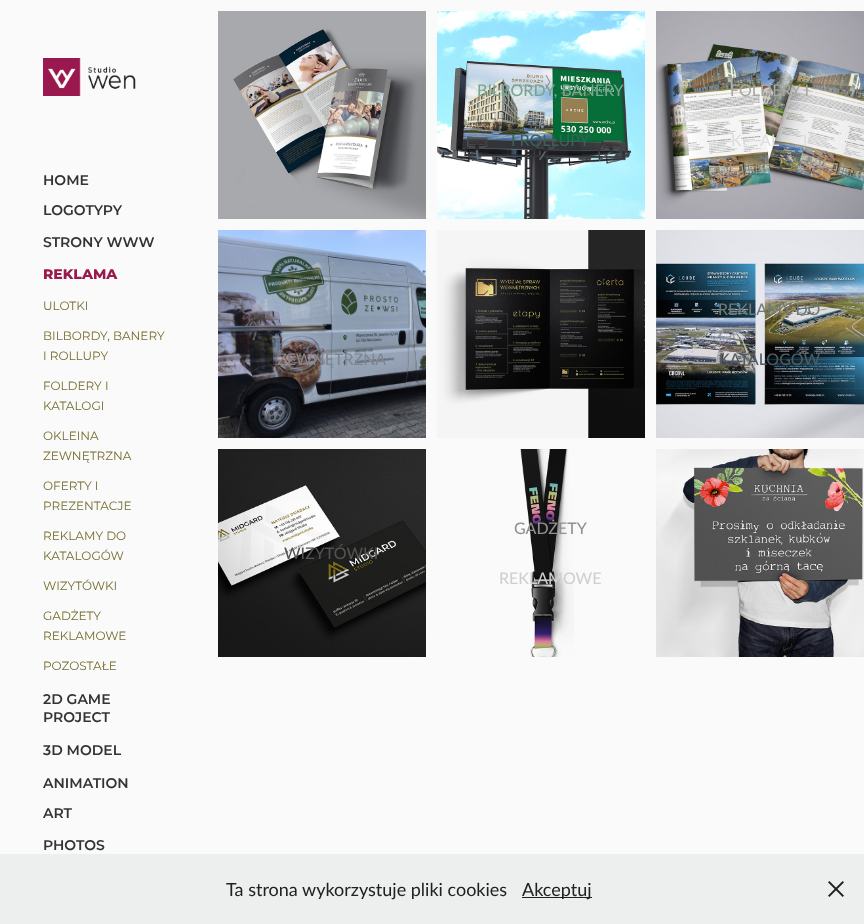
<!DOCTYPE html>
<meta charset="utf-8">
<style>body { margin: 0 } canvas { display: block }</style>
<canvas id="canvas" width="864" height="924"></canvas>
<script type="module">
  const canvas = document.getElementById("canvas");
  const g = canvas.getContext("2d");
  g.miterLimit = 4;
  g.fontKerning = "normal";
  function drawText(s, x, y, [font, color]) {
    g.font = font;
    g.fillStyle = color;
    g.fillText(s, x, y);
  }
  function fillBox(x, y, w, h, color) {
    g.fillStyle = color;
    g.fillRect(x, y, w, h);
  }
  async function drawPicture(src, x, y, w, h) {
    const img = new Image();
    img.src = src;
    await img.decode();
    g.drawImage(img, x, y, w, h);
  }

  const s1 = ["600 14px Montserrat", "#333333"];
  const s2 = ["800 14px Montserrat", "#9A1A4D"];
  const s3 = ["12px Montserrat", "#756C2E"];
  const s4 = ["500 16px Lato", "#78A592"];
  const s5 = ["500 16px Lato", "#3A605A"];
  const s6 = ["500 16px Lato", "#A7A8A1"];
  const s7 = ["500 16px Lato", "#DCDDDD"];
  const s8 = ["500 16px Lato", "#82848E"];
  const s9 = ["500 16px Lato", "#707A75"];
  const s10 = ["500 16px Lato", "#505A61"];
  const s11 = ["500 16px Lato", "#535352"];
  const s12 = ["500 16px Lato", "#919192"];
  const s13 = ["500 16px Lato", "#CFCFCF"];
  const s14 = ["18px Lato", "#212121"];

  fillBox(0, 0, 864, 924, "#FAFAFA");
  await drawPicture("pic1.png", 43, 58, 93, 38);
  drawText("HOME", 43, 185, s1);
  drawText("LOGOTYPY", 43, 215, s1);
  drawText("STRONY WWW", 43, 247, s1);
  drawText("REKLAMA", 43, 279, s2);
  drawText("ULOTKI", 43, 310, s3);
  drawText("BILBORDY, BANERY", 43, 340, s3);
  drawText("I ROLLUPY", 43, 360, s3);
  drawText("FOLDERY I", 43, 390, s3);
  drawText("KATALOGI", 43, 410, s3);
  drawText("OKLEINA", 43, 440, s3);
  drawText("ZEWNĘTRZNA", 43, 460, s3);
  drawText("OFERTY I", 43, 490, s3);
  drawText("PREZENTACJE", 43, 510, s3);
  drawText("REKLAMY DO", 43, 540, s3);
  drawText("KATALOGÓW", 43, 560, s3);
  drawText("WIZYTÓWKI", 43, 590, s3);
  drawText("GADŻETY", 43, 620, s3);
  drawText("REKLAMOWE", 43, 640, s3);
  drawText("POZOSTAŁE", 43, 670, s3);
  drawText("2D GAME", 43, 704, s1);
  drawText("PROJECT", 43, 722, s1);
  drawText("3D MODEL", 43, 755, s1);
  drawText("ANIMATION", 43, 788, s1);
  drawText("ART", 43, 818, s1);
  drawText("PHOTOS", 43, 850, s1);
  await drawPicture("pic2.png", 218, 11, 208, 208);
  await drawPicture("pic3.png", 437, 11, 208, 208);
  drawText("BILBORDY, BANERY", 477, 96, s4);
  drawText("I ROLLUPY", 511, 146, s5);
  await drawPicture("pic4.png", 656, 11, 208, 208);
  drawText("FOLDERY I", 730, 96, s6);
  drawText("K", 731, 146, s7);
  drawText("AL", 760, 146, s7);
  drawText("I", 803, 146, s7);
  await drawPicture("pic5.png", 218, 230, 208, 208);
  drawText("ZEWNĘTRZNA", 277, 365, s8);
  await drawPicture("pic6.png", 437, 230, 208, 208);
  await drawPicture("pic7.png", 656, 230, 208, 208);
  drawText("REKLAMY DO", 718, 315, s9);
  drawText("KATALOGÓW", 719, 365, s10);
  await drawPicture("pic8.png", 218, 449, 208, 208);
  drawText("WIZYTÓWKI", 284, 559, s11);
  await drawPicture("pic9.png", 520, 449, 54, 208);
  drawText("GADŻETY", 514, 534, s12);
  drawText("REKLAMOWE", 499, 584, s13);
  await drawPicture("pic10.png", 656, 449, 208, 208);
  fillBox(0, 854, 864, 70, "#EDEEEE");
  drawText("Ta strona wykorzystuje pliki cookies", 226, 896, s14);
  fillBox(522, 897, 70, 1, "#212121");
  drawText("Akceptuj", 522, 896, s14);
  await drawPicture("pic11.png", 828, 881, 16, 16);
</script>
